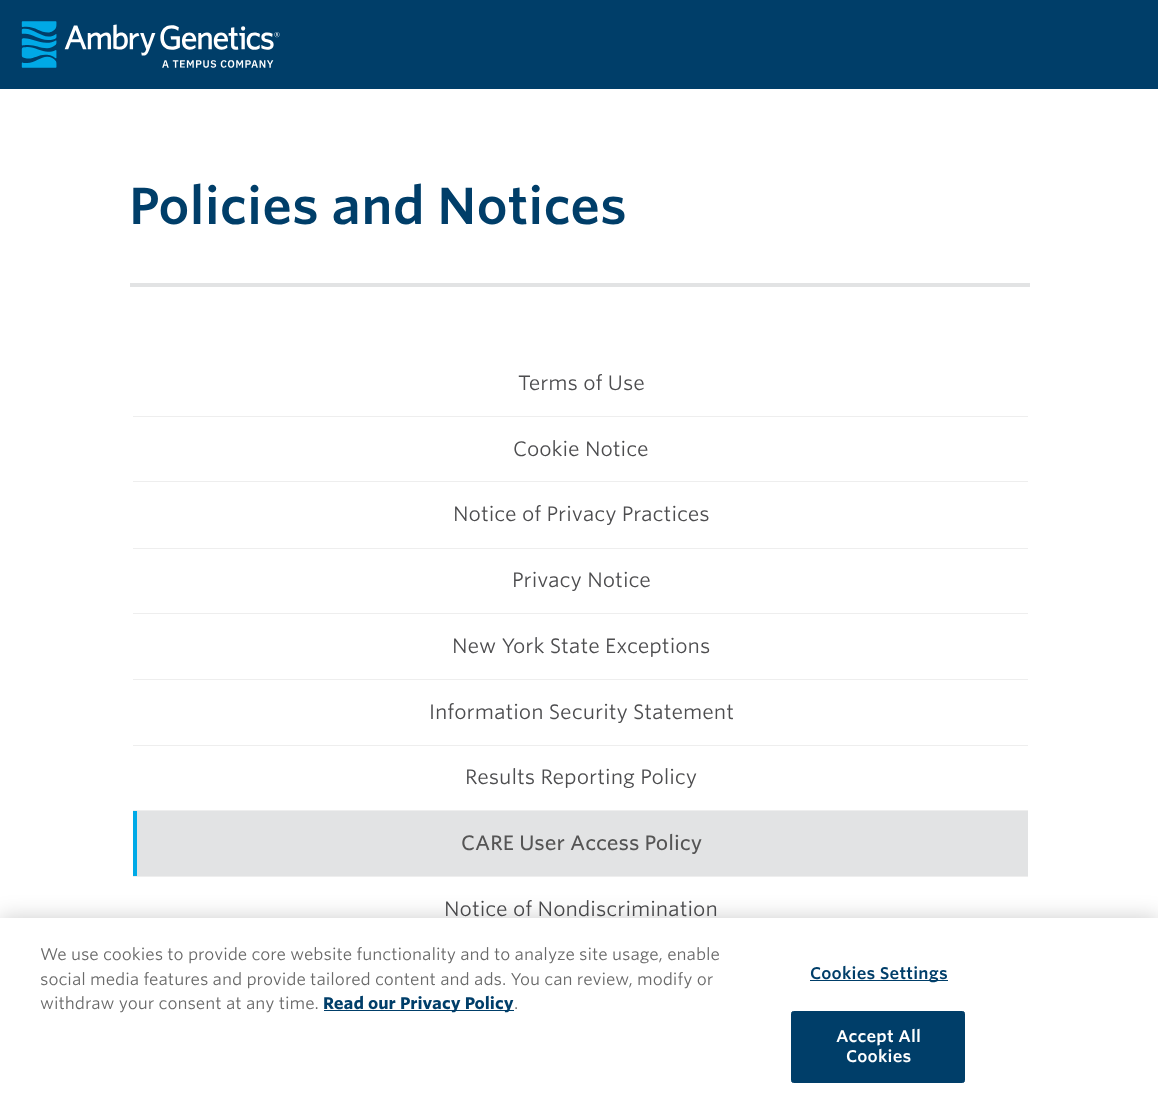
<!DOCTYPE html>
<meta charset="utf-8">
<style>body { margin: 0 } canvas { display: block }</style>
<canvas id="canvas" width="1158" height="1107"></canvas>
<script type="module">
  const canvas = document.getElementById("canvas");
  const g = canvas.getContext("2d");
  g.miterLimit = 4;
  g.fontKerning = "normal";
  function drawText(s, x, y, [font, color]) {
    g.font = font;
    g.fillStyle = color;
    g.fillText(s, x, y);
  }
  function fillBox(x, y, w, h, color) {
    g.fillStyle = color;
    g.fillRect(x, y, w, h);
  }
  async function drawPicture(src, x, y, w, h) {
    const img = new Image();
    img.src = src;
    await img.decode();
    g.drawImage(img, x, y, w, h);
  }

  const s1 = ["50px 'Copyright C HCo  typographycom'", "#003E69"];
  const s2 = ["300 20px 'Copyright C HCo  typographycom'", "#4D4D4F"];
  const s3 = ["300 20px 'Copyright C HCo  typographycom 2'", "#555555"];
  const s4 = ["300 16.25px 'Copyright C HCo  typographycom'", "#696969"];
  const s5 = ["16.25px 'Copyright C HCo  typographycom 2'", "#003E69"];
  const s6 = ["16.25px 'Copyright C HCo  typographycom'", "#003E69"];
  const s7 = ["16.25px 'Copyright C HCo  typographycom'", "#FFFFFF"];

  fillBox(0, 0, 1158, 1107, "#FFFFFF");
  fillBox(0, 0, 1158, 89, "#003E69");
  await drawPicture("pic1.png", 21, 21, 259, 47);
  drawText("Policies and Notices", 129, 224, s1);
  fillBox(130, 283, 900, 4, "#E2E3E4");
  fillBox(133, 416, 895, 1, "#EEEEEE");
  drawText("Terms of Use", 518, 390, s2);
  fillBox(133, 481, 895, 1, "#EEEEEE");
  drawText("Cookie Notice", 513, 456, s2);
  fillBox(133, 548, 895, 1, "#EEEEEE");
  drawText("Notice of Privacy Practices", 453, 521, s2);
  fillBox(133, 613, 895, 1, "#EEEEEE");
  drawText("Privacy Notice", 512, 587, s2);
  fillBox(133, 679, 895, 1, "#EEEEEE");
  drawText("New York State Exceptions", 452, 653, s2);
  fillBox(133, 745, 895, 1, "#EEEEEE");
  drawText("Information Security Statement", 429, 719, s2);
  fillBox(133, 810, 895, 1, "#EEEEEE");
  drawText("Results Reporting Policy", 465, 784, s2);
  fillBox(133, 876, 895, 1, "#EEEEEE");
  fillBox(137, 811, 891, 65, "#E2E3E4");
  fillBox(133, 811, 4, 65, "#00AAE7");
  drawText("CARE User Access Policy", 461, 850, s3);
  drawText("Notice of Nondiscrimination", 444, 916, s2);
  g.fillStyle = "rgba(0, 0, 0, 0.2)";
  g.filter = "blur(11px)";
  g.beginPath();
  g.rect(0, 918, 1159, 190);
  g.fill();
  g.filter = "none";
  fillBox(0, 918, 1158, 189, "#FFFFFF");
  drawText("We use cookies to provide core website functionality and to analyze site usage, enable", 40, 960, s4);
  drawText("social media features and provide tailored content and ads. You can review, modify or", 40, 985, s4);
  drawText("withdraw your consent at any time.", 40, 1009, s4);
  fillBox(324, 1010, 190, 1, "#003E69");
  drawText("Read our Privacy Policy", 323, 1009, s5);
  drawText(".", 514, 1009, s4);
  fillBox(810, 980, 138, 1, "#003E69");
  g.letterSpacing = "0.2px";
  drawText("Cookies Settings", 810, 979, s6);
  g.beginPath();
  g.roundRect(791.5, 1011.5, 173, 71, 2);
  g.fill();
  g.strokeStyle = "#003E69";
  g.stroke();
  drawText("Accept All", 836, 1042, s7);
  drawText("Cookies", 846, 1062, s7);
</script>
